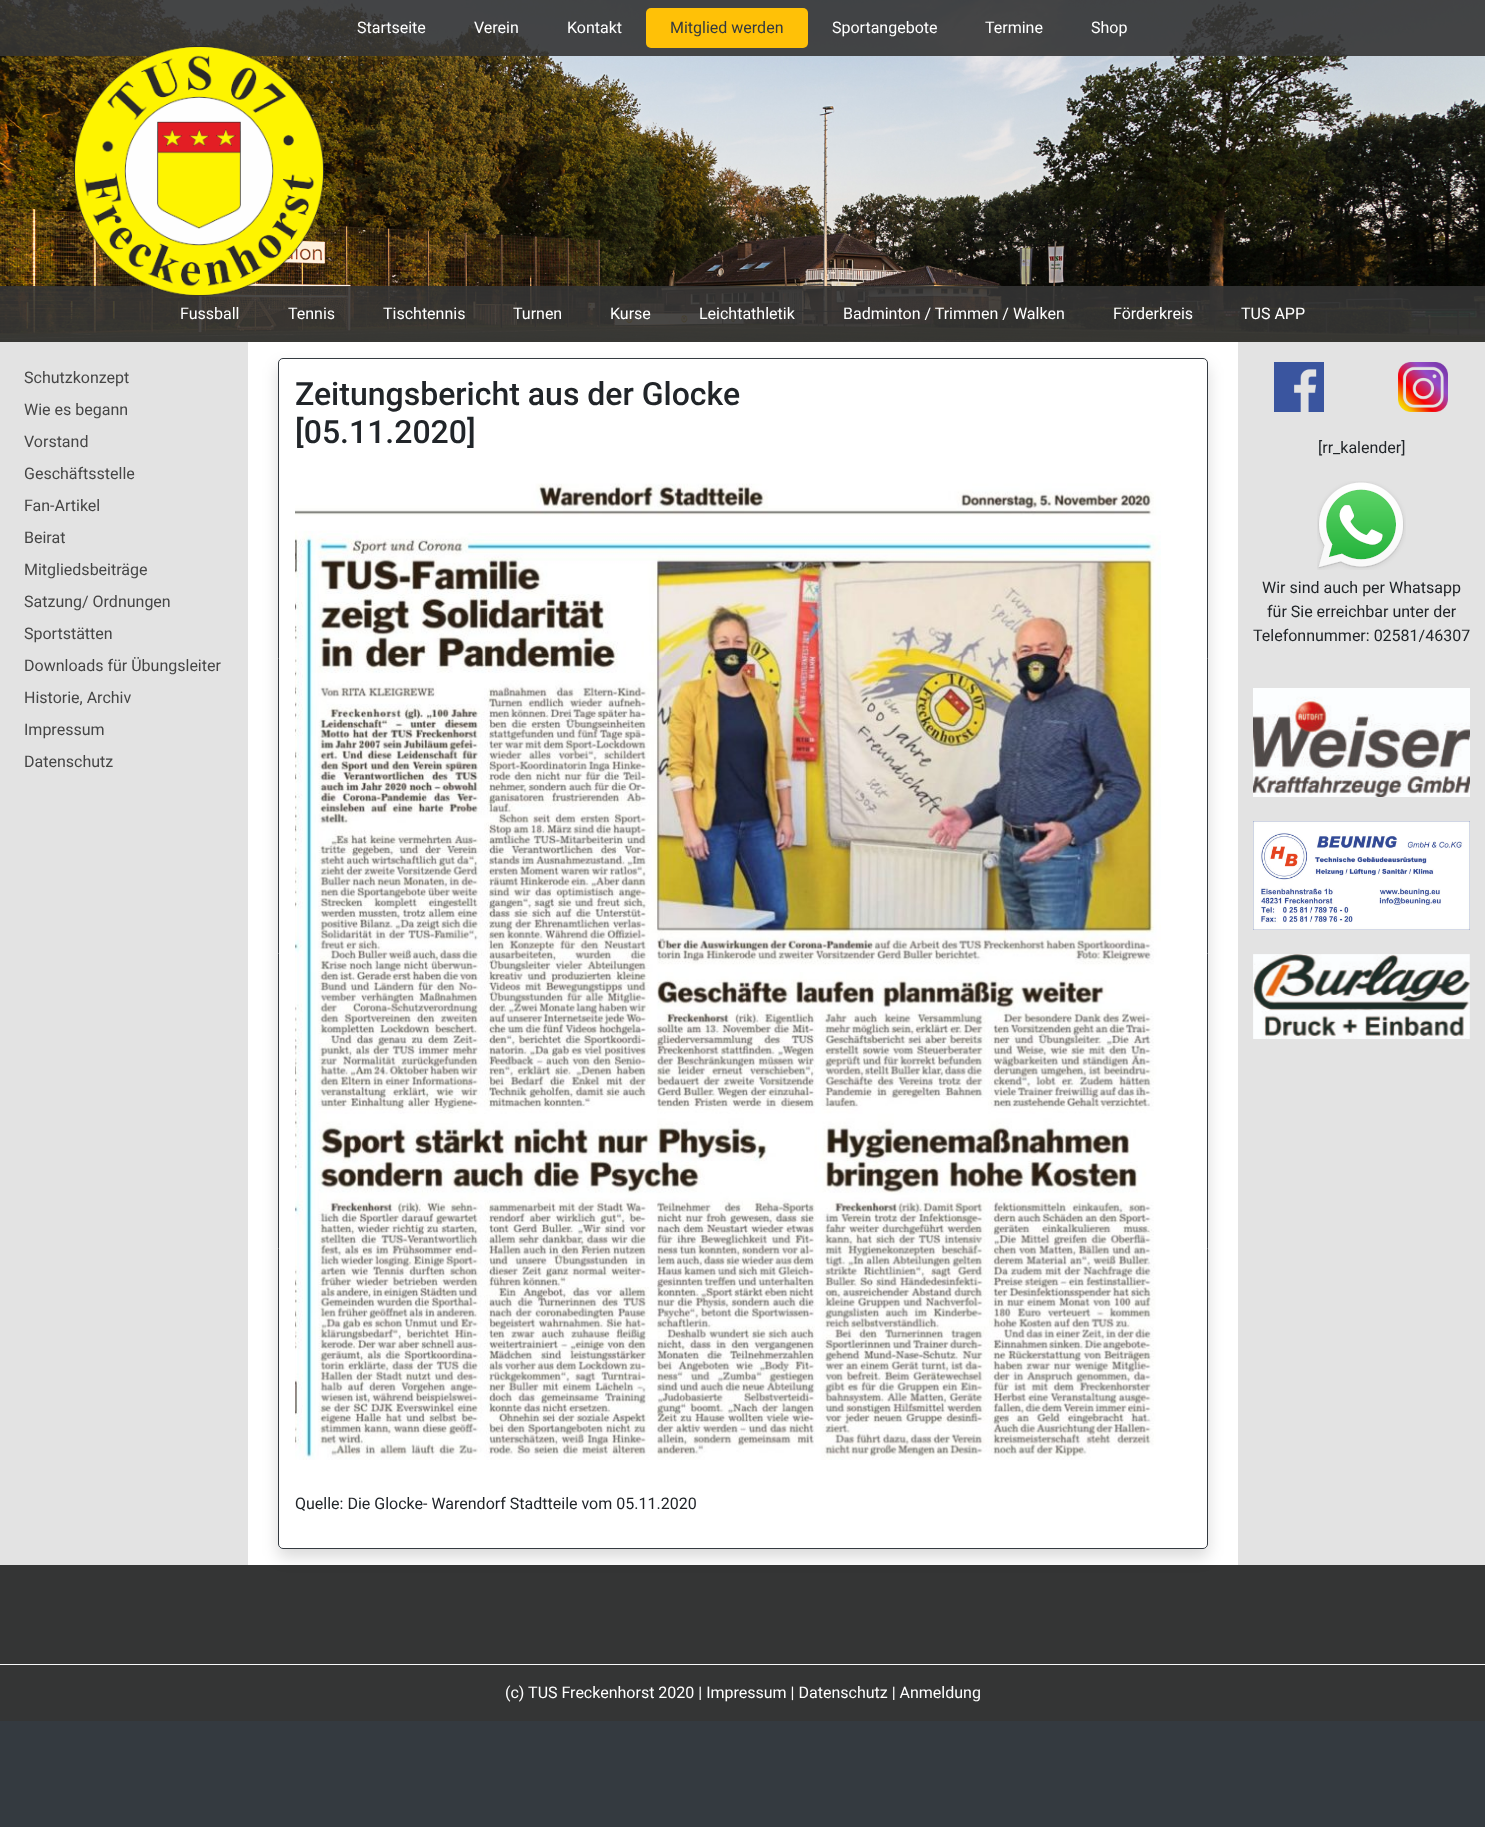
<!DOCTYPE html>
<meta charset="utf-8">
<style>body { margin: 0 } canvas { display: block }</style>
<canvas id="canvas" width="1485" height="1827"></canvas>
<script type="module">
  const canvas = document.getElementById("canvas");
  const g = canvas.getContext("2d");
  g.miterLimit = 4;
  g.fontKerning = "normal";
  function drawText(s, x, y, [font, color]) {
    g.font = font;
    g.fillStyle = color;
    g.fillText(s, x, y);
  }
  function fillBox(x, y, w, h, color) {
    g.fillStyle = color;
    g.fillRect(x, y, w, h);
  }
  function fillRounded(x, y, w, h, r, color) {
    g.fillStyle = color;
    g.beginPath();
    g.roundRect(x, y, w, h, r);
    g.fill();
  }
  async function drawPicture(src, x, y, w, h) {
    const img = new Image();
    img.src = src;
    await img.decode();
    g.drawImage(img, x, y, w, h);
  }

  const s1 = ["16px Roboto", "#FFFFFF"];
  const s2 = ["16px Roboto", "#343A40"];
  const s3 = ["16px Roboto", "#464646"];
  const s4 = ["500 32px Roboto", "#212529"];
  const s5 = ["16px Roboto", "#212529"];

  fillBox(0, 0, 1485, 1827, "#343A40");
  await drawPicture("pic1.png", 0, 0, 1485, 342);
  fillBox(0, 0, 1485, 56, "rgba(52, 52, 52, 0.9)");
  drawText("Startseite", 357, 33, s1);
  drawText("Verein", 474, 33, s1);
  drawText("Kontakt", 567, 33, s1);
  fillRounded(646, 8, 162, 40, 5, "#FFC107");
  drawText("Mitglied werden", 670, 33, s2);
  drawText("Sportangebote", 832, 33, s1);
  drawText("Termine", 985, 33, s1);
  drawText("Shop", 1091, 33, s1);
  fillBox(0, 286, 1485, 56, "rgba(52, 52, 52, 0.9)");
  await drawPicture("pic2.png", 74, 46, 250, 250);
  drawText("Fussball", 180, 319, s1);
  drawText("Tennis", 288, 319, s1);
  drawText("Tischtennis", 383, 319, s1);
  drawText("Turnen", 513, 319, s1);
  drawText("Kurse", 610, 319, s1);
  drawText("Leichtathletik", 699, 319, s1);
  drawText("Badminton / Trimmen / Walken", 843, 319, s1);
  drawText("Förderkreis", 1113, 319, s1);
  drawText("TUS APP", 1241, 319, s1);
  fillBox(0, 342, 248, 1223, "#E3E3E3");
  drawText("Schutzkonzept", 24, 383, s3);
  drawText("Wie es begann", 24, 415, s3);
  drawText("Vorstand", 24, 447, s3);
  drawText("Geschäftsstelle", 24, 479, s3);
  drawText("Fan-Artikel", 24, 511, s3);
  drawText("Beirat", 24, 543, s3);
  drawText("Mitgliedsbeiträge", 24, 575, s3);
  drawText("Satzung/ Ordnungen", 24, 607, s3);
  drawText("Sportstätten", 24, 639, s3);
  drawText("Downloads für Übungsleiter", 24, 671, s3);
  drawText("Historie, Archiv", 24, 703, s3);
  drawText("Impressum", 24, 735, s3);
  drawText("Datenschutz", 24, 767, s3);
  fillBox(248, 342, 990, 1223, "#FFFFFF");
  fillBox(0, 1565, 1485, 156, "#343535");
  g.save();
  g.beginPath();
  g.moveTo(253, 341);
  g.lineTo(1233, 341);
  g.lineTo(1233, 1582);
  g.lineTo(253, 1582);
  g.closePath();
  g.moveTo(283, 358);
  g.lineTo(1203, 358);
  g.bezierCurveTo(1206, 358, 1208, 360, 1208, 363);
  g.lineTo(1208, 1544);
  g.bezierCurveTo(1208, 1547, 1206, 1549, 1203, 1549);
  g.lineTo(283, 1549);
  g.bezierCurveTo(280, 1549, 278, 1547, 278, 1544);
  g.lineTo(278, 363);
  g.bezierCurveTo(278, 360, 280, 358, 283, 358);
  g.closePath();
  g.clip("evenodd");
  g.fillStyle = "rgba(0, 0, 0, 0.15)";
  g.filter = "blur(8px)";
  g.beginPath();
  g.roundRect(278, 366, 930, 1191, 5);
  g.fill();
  g.filter = "none";
  g.restore();
  g.beginPath();
  g.roundRect(278.5, 358.5, 929, 1190, 4.5);
  g.strokeStyle = "#343A40";
  g.stroke();
  drawText("Zeitungsbericht aus der Glocke", 295, 405, s4);
  drawText("[05.11.2020]", 295, 443, s4);
  await drawPicture("pic3.png", 295, 483, 866, 977);
  drawText("Quelle: Die Glocke- Warendorf Stadtteile vom 05.11.2020", 295, 1509, s5);
  fillBox(1238, 342, 247, 1223, "#E3E3E3");
  await drawPicture("pic4.png", 1274, 362, 50, 50);
  await drawPicture("pic5.png", 1398, 362, 50, 50);
  drawText("[rr_kalender]", 1318, 453, s5);
  await drawPicture("pic6.png", 1317, 481, 89, 89);
  drawText("Wir sind auch per Whatsapp", 1262, 593, s5);
  drawText("für Sie erreichbar unter der", 1267, 617, s5);
  drawText("Telefonnummer: 02581/46307", 1253, 641, s5);
  await drawPicture("pic7.png", 1253, 688, 217, 109);
  await drawPicture("pic8.png", 1253, 821, 217, 109);
  await drawPicture("pic9.png", 1253, 954, 217, 85);
  fillBox(0, 1664, 1485, 1, "#F8F9FA");
  drawText("(c) TUS Freckenhorst 2020 | Impressum | Datenschutz | Anmeldung", 505, 1698, s1);
</script>
